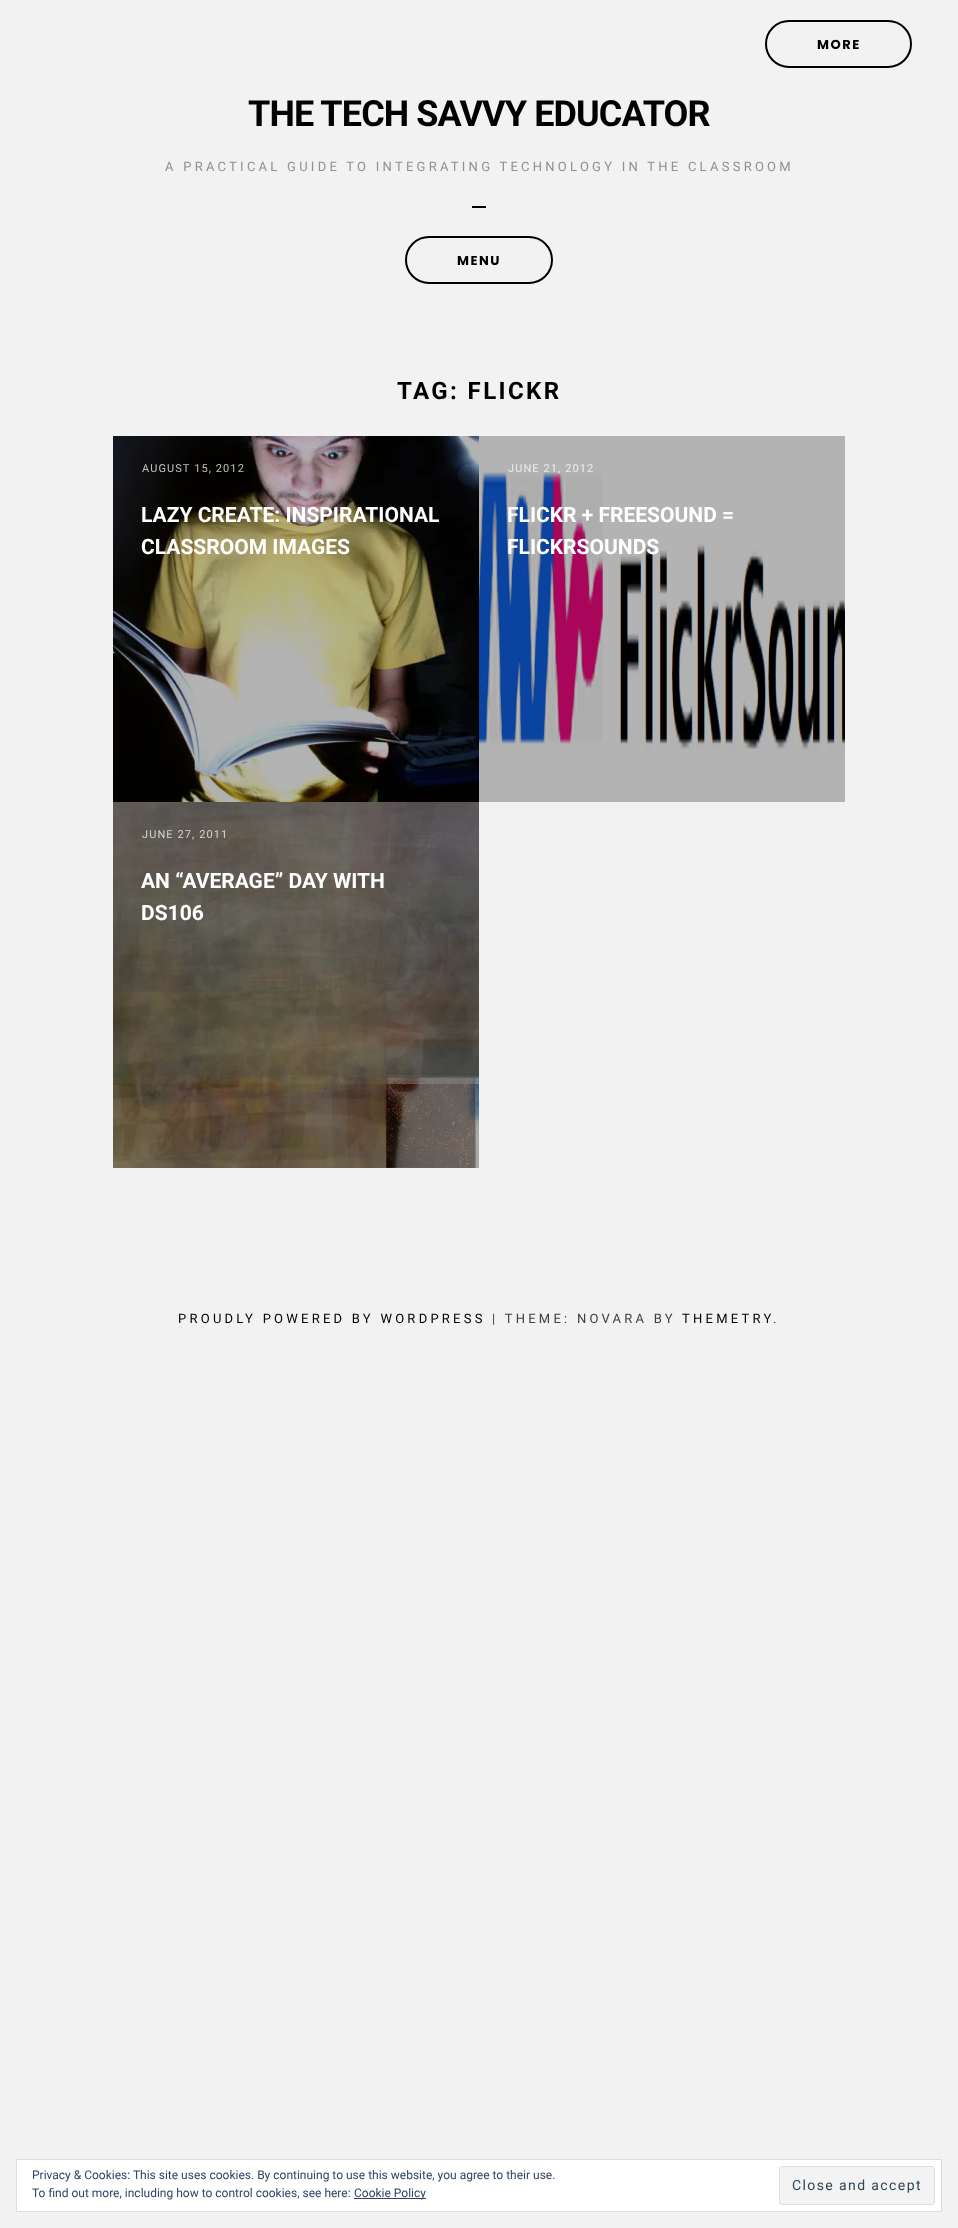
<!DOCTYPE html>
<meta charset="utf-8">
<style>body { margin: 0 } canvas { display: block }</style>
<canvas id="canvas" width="958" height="2228"></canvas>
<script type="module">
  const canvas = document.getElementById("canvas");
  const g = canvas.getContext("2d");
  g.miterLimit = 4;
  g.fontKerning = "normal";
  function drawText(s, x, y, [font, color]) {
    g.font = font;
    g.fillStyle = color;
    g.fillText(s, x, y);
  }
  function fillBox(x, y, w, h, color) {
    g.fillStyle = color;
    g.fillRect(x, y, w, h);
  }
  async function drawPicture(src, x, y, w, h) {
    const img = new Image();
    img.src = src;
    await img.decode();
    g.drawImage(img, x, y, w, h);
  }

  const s1 = ["bold 13px Poppins", "#000000"];
  const s2 = ["bold 36px Roboto", "#000000"];
  const s3 = ["13px Roboto", "#909090"];
  const s4 = ["bold 24px Roboto", "#000000"];
  const s5 = ["11px Roboto", "#C1C1C1"];
  const s6 = ["bold 21px Roboto", "#FFFFFF"];
  const s7 = ["11px Roboto", "#ECECEC"];
  const s8 = ["11px Roboto", "#D7D5D3"];
  const s9 = ["13px Roboto", "#000000"];
  const s10 = ["13px Roboto", "#404040"];
  const s11 = ["12px Roboto", "#2E4467"];
  const s12 = ["14px Roboto", "#2E4453"];

  fillBox(0, 0, 958, 2228, "#F2F2F2");
  g.beginPath();
  g.roundRect(766, 21, 145, 46, 23);
  g.strokeStyle = "#000000";
  g.lineWidth = 2;
  g.stroke();
  g.letterSpacing = "1.5px";
  drawText("MORE", 817, 49, s1);
  g.letterSpacing = "-0.9px";
  drawText("THE TECH SAVVY EDUCATOR", 248, 126, s2);
  g.letterSpacing = "3.25px";
  drawText("A PRACTICAL GUIDE TO INTEGRATING TECHNOLOGY IN THE CLASSROOM", 165, 171, s3);
  fillBox(472, 206, 14, 2, "#000000");
  g.beginPath();
  g.roundRect(406, 237, 146, 46, 23);
  g.stroke();
  g.letterSpacing = "1.5px";
  drawText("MENU", 457, 265, s1);
  g.letterSpacing = "2.4px";
  drawText("TAG: FLICKR", 397, 399, s4);
  await drawPicture("pic1.png", 113, 436, 366, 366);
  g.letterSpacing = "1.1px";
  drawText("AUGUST 15, 2012", 142, 472, s5);
  g.letterSpacing = "0px";
  drawText("LAZY CREATE: INSPIRATIONAL", 141, 522, s6);
  drawText("CLASSROOM IMAGES", 141, 554, s6);
  await drawPicture("pic2.png", 479, 436, 366, 366);
  g.letterSpacing = "1.1px";
  drawText("JUNE 21, 2012", 508, 472, s7);
  g.letterSpacing = "0px";
  drawText("FLICKR + FREESOUND =", 507, 522, s6);
  drawText("FLICKRSOUNDS", 507, 554, s6);
  await drawPicture("pic3.png", 113, 802, 366, 366);
  g.letterSpacing = "1.1px";
  drawText("JUNE 27, 2011", 142, 838, s8);
  g.letterSpacing = "0px";
  drawText("AN “AVERAGE” DAY WITH", 141, 888, s6);
  drawText("DS106", 141, 920, s6);
  g.letterSpacing = "3.25px";
  drawText("PROUDLY POWERED BY WORDPRESS", 178, 1323, s9);
  drawText("| THEME: NOVARA BY", 492, 1323, s10);
  drawText("THEMETRY", 682, 1323, s9);
  drawText(".", 773, 1323, s10);
  g.fillStyle = "#FFFFFF";
  g.beginPath();
  g.rect(16.5, 2159.5, 925, 52);
  g.fill();
  g.strokeStyle = "#DEDEDE";
  g.lineWidth = 1;
  g.stroke();
  g.letterSpacing = "0px";
  drawText("Privacy & Cookies: This site uses cookies. By continuing to use this website, you agree to their use.", 32, 2179, s11);
  drawText("To find out more, including how to control cookies, see here:", 32, 2197, s11);
  fillBox(354, 2198, 72, 1, "#2E4467");
  drawText("Cookie Policy", 354, 2197, s11);
  g.fillStyle = "#F3F3F3";
  g.beginPath();
  g.roundRect(779.5, 2166.5, 155, 38, 2.5);
  g.fill();
  g.stroke();
  g.letterSpacing = "1.4px";
  drawText("Close and accept", 792, 2190, s12);
</script>
